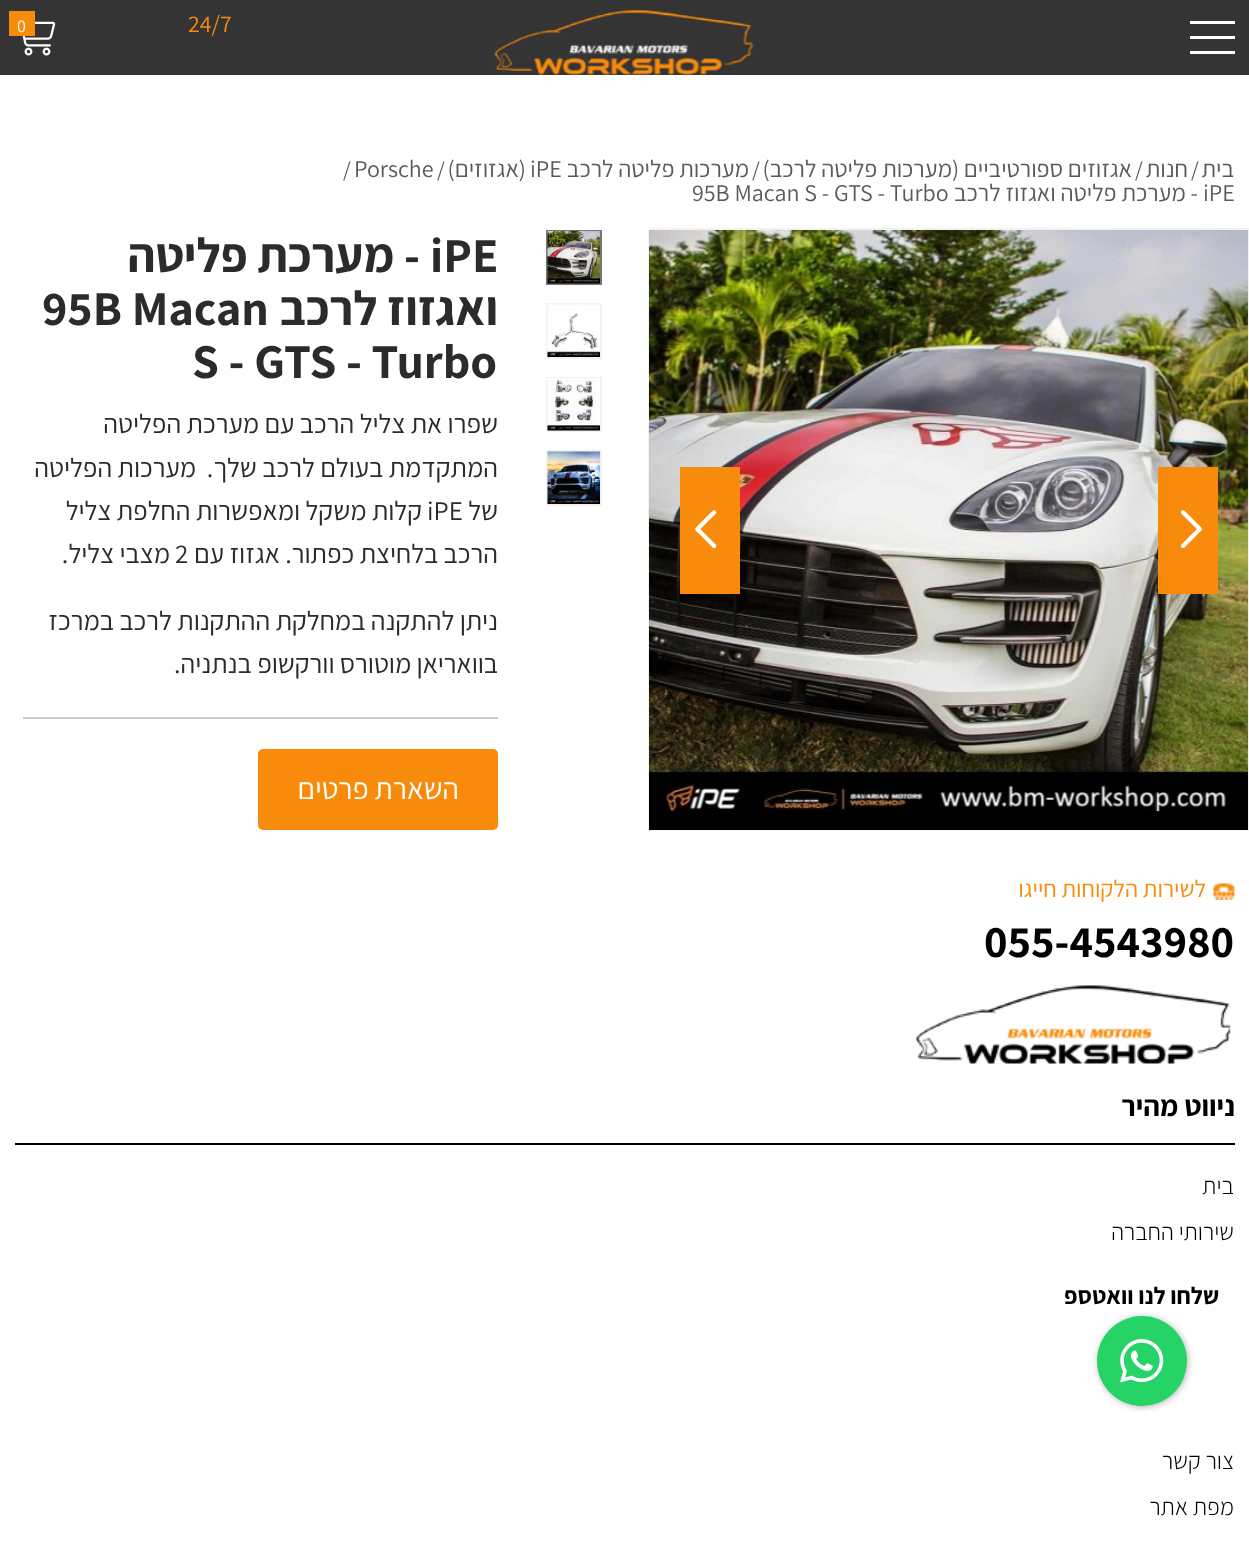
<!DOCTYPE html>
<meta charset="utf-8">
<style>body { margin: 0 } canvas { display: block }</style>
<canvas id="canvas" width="1249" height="1548"></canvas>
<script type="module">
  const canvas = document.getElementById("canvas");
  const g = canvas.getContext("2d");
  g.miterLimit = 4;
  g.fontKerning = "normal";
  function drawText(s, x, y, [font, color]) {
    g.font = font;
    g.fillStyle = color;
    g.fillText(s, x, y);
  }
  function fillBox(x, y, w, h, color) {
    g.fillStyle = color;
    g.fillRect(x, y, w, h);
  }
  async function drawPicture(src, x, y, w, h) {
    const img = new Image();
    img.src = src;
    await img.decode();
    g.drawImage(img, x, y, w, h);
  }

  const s1 = ["24px Assistant", "#F88B0C"];
  const s2 = ["18px Assistant", "#FFFFFF"];
  const s3 = ["24px Assistant", "#5A5A5A"];
  const s4 = ["22px Assistant", "#5A5A5A"];
  const s5 = ["bold 48.5px Assistant", "#2C2B2B"];
  const s6 = ["27px Assistant", "#2C2B2B"];
  const s7 = ["30px Assistant", "#FFFFFF"];
  const s8 = ["bold 24px Assistant", "#000000"];
  const s9 = ["bold 45px Assistant", "#000000"];
  const s10 = ["bold 29px Assistant", "#000000"];
  const s11 = ["300 24px Assistant", "#000000"];

  fillBox(0, 0, 1249, 1548, "#FFFFFF");
  fillBox(0, 0, 1249, 75, "#343434");
  fillBox(1190, 51, 45, 3, "#FFFFFF");
  fillBox(1190, 36, 45, 3, "#FFFFFF");
  fillBox(1190, 21, 45, 3, "#FFFFFF");
  await drawPicture("pic1.png", 494, 10, 260, 65);
  drawText("24/7", 188, 32, s1);
  await drawPicture("pic2.png", 22, 21, 34, 35);
  fillBox(9, 11, 26, 25, "#F88B0C");
  drawText("0", 17, 32, s2);
  g.direction = "rtl";
  drawText("בית", 1234, 177, s3);
  g.direction = "ltr";
  drawText("/", 1191, 177, s4);
  g.direction = "rtl";
  drawText("חנות", 1188, 177, s3);
  g.direction = "ltr";
  drawText("/", 1135, 177, s4);
  g.direction = "rtl";
  drawText("אגזוזים ספורטיביים (מערכות פליטה לרכב)", 1132, 177, s3);
  g.direction = "ltr";
  drawText("/", 752, 177, s4);
  g.direction = "rtl";
  drawText("מערכות פליטה לרכב", 749, 177, s3);
  g.direction = "ltr";
  drawText("iPE", 530, 177, s3);
  g.direction = "rtl";
  drawText("(אגזוזים)", 526, 177, s3);
  g.direction = "ltr";
  drawText("/", 437, 177, s4);
  drawText("Porsche", 354, 177, s3);
  drawText("/", 343, 177, s4);
  drawText("iPE", 1203, 201, s3);
  g.direction = "rtl";
  drawText("- מערכת פליטה ואגזוז לרכב", 1198, 201, s3);
  g.direction = "ltr";
  drawText("95B Macan S - GTS - Turbo", 692, 201, s3);
  g.strokeStyle = "#F2F2F2";
  g.lineWidth = 2;
  g.strokeRect(649, 229, 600, 601);
  await drawPicture("pic3.png", 649, 230, 599, 600);
  fillBox(1158, 467, 60, 127, "#F88B0C");
  await drawPicture("pic4.png", 1180, 510, 22, 39);
  fillBox(680, 467, 60, 127, "#F88B0C");
  await drawPicture("pic5.png", 695, 510, 22, 39);
  g.strokeStyle = "#767676";
  g.strokeRect(547, 231, 54, 53);
  await drawPicture("pic6.png", 547, 231, 53, 53);
  g.strokeStyle = "#F2F2F2";
  g.strokeRect(547, 304, 54, 54);
  await drawPicture("pic7.png", 547, 304, 53, 53);
  g.strokeRect(547, 378, 54, 53);
  await drawPicture("pic8.png", 547, 378, 53, 53);
  g.strokeRect(547, 451, 54, 54);
  await drawPicture("pic9.png", 547, 451, 53, 53);
  drawText("iPE", 430, 272, s5);
  g.direction = "rtl";
  drawText("- מערכת פליטה", 420, 272, s5);
  drawText("ואגזוז לרכב", 498, 325, s5);
  g.direction = "ltr";
  drawText("95B Macan", 42, 325, s5);
  drawText("S - GTS - Turbo", 192, 378, s5);
  g.direction = "rtl";
  drawText("שפרו את צליל הרכב עם מערכת הפליטה", 498, 433, s6);
  drawText("המתקדמת בעולם לרכב שלך.  מערכות הפליטה", 498, 477, s6);
  drawText("של", 498, 520, s6);
  g.direction = "ltr";
  drawText("iPE", 427, 520, s6);
  g.direction = "rtl";
  drawText("קלות משקל ומאפשרות החלפת צליל", 422, 520, s6);
  drawText("הרכב בלחיצת כפתור. אגזוז עם", 498, 563, s6);
  g.direction = "ltr";
  drawText("2", 175, 563, s6);
  g.direction = "rtl";
  drawText("מצבי צליל.", 170, 563, s6);
  drawText("ניתן להתקנה במחלקת ההתקנות לרכב במרכז", 498, 630, s6);
  drawText("בוואריאן מוטורס וורקשופ בנתניה.", 498, 673, s6);
  fillBox(23, 717, 475, 2, "#CACACA");
  g.fillStyle = "#F88B0C";
  g.beginPath();
  g.roundRect(259, 750, 238, 79, 4);
  g.fill();
  g.strokeStyle = "#F88B0C";
  g.stroke();
  drawText("השארת פרטים", 459, 799, s7);
  drawText("שלחו לנו וואטספ", 1219, 1304, s8);
  g.fillStyle = "rgba(0, 0, 0, 0.3)";
  g.filter = "blur(3px)";
  g.beginPath();
  g.roundRect(1098, 1317, 90, 90, 45);
  g.fill();
  g.filter = "none";
  g.fillStyle = "#25D366";
  g.beginPath();
  g.arc(1142, 1361, 45, 0, Math.PI * 2);
  g.fill();
  await drawPicture("pic10.png", 1120, 1339, 44, 44);
  await drawPicture("pic11.png", 1213, 883, 22, 17);
  drawText("לשירות הלקוחות חייגו", 1206, 897, s1);
  g.direction = "ltr";
  drawText("055-4543980", 984, 957, s9);
  await drawPicture("pic12.png", 916, 985, 315, 79);
  fillBox(15, 1143, 1220, 2, "#000000");
  g.direction = "rtl";
  drawText("ניווט מהיר", 1235, 1116, s10);
  drawText("בית", 1234, 1194, s11);
  drawText("שירותי החברה", 1234, 1240, s11);
  drawText("צור קשר", 1234, 1469, s11);
  drawText("מפת אתר", 1234, 1515, s11);
</script>
